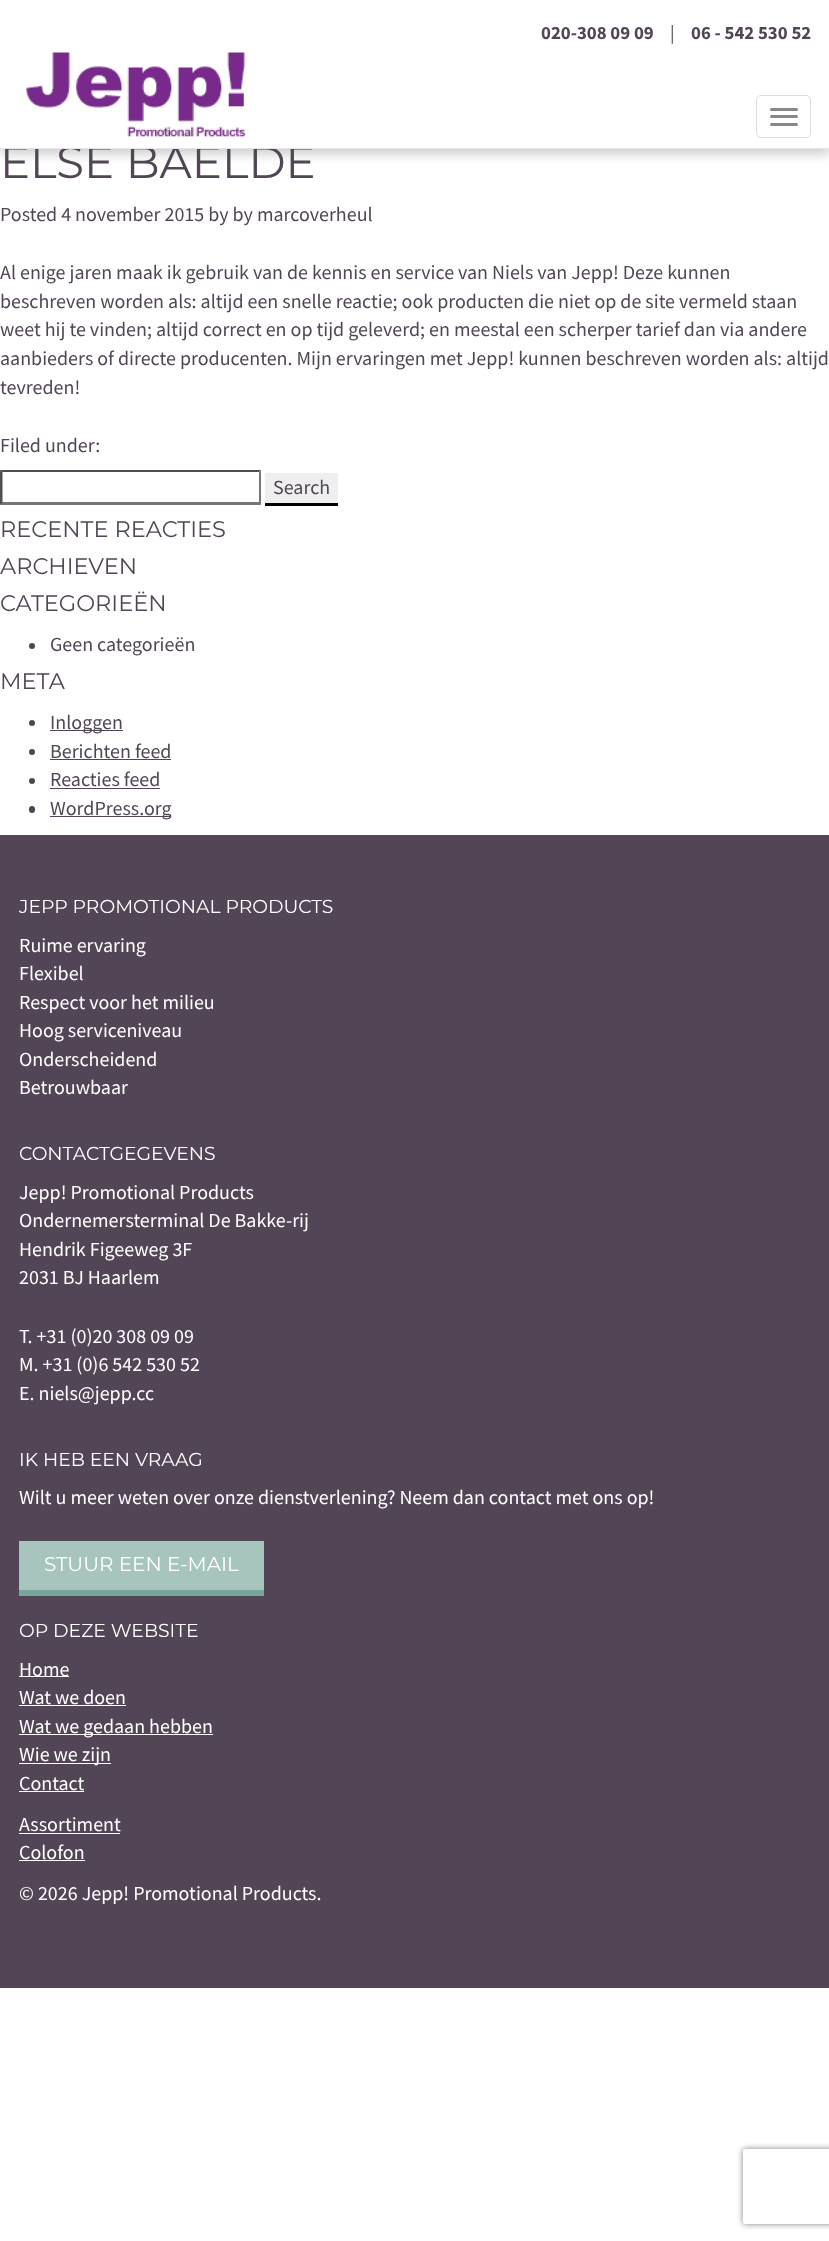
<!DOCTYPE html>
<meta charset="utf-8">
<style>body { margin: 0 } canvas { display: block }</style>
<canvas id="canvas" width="829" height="2241"></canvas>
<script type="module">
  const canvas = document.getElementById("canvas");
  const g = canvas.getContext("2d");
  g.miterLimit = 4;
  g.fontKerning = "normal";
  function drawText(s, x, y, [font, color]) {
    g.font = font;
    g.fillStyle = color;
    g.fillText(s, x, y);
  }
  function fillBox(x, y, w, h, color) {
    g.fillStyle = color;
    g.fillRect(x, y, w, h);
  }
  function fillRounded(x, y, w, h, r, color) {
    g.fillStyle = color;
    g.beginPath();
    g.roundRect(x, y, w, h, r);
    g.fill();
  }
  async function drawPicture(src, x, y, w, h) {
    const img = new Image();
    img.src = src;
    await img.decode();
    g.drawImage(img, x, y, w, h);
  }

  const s1 = ["100 45px Montserrat", "#524656"];
  const s2 = ["bold 18.75px Source Sans Pro", "#524656"];
  const s3 = ["18.75px Source Sans Pro", "#524656"];
  const s4 = ["20px Source Sans Pro", "#524656"];
  const s5 = ["100 22.5px Montserrat", "#524656"];
  const s6 = ["100 18.75px Montserrat", "#FFFFFF"];
  const s7 = ["20px Source Sans Pro", "#FFFFFF"];
  const s8 = ["100 20px Montserrat", "#FFFFFF"];

  fillBox(0, 0, 829, 2241, "#FFFFFF");
  g.fillStyle = "rgba(50, 50, 50, 0.25)";
  g.filter = "blur(6px)";
  g.beginPath();
  g.rect(0, 5, 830, 149);
  g.fill();
  g.filter = "none";
  drawText("ELSE BAELDE", 0, 178, s1);
  fillBox(0, 0, 829, 148, "#FFFFFF");
  fillBox(0, 148, 829, 1, "#E7E7E7");
  drawText("020-308 09 09", 541, 39, s2);
  drawText("|", 670, 39, s3);
  drawText("06 - 542 530 52", 691, 39, s2);
  await drawPicture("pic1.png", 26, 52, 220, 85);
  g.beginPath();
  g.roundRect(756.5, 95.5, 54, 42, 4.5);
  g.strokeStyle = "#DDDDDD";
  g.stroke();
  fillRounded(770, 108, 28, 3, 1.5, "#888888");
  fillRounded(770, 115, 28, 3, 1.5, "#888888");
  fillRounded(770, 123, 28, 3, 1.5, "#888888");
  drawText("Posted 4 november 2015 by by marcoverheul", 0, 221, s4);
  drawText("Al enige jaren maak ik gebruik van de kennis en service van Niels van Jepp! Deze kunnen", 0, 279, s4);
  drawText("beschreven worden als: altijd een snelle reactie; ook producten die niet op de site vermeld staan", 0, 308, s4);
  drawText("weet hij te vinden; altijd correct en op tijd geleverd; en meestal een scherper tarief dan via andere", 0, 336, s4);
  drawText("aanbieders of directe producenten. Mijn ervaringen met Jepp! kunnen beschreven worden als: altijd", 0, 365, s4);
  drawText("tevreden!", 0, 394, s4);
  drawText("Filed under:", 0, 452, s4);
  g.fillStyle = "#4F4F4F";
  g.beginPath();
  g.moveTo(0, 470);
  g.lineTo(261, 470);
  g.lineTo(259, 472);
  g.lineTo(2, 472);
  g.closePath();
  g.fill();
  g.fillStyle = "#767676";
  g.beginPath();
  g.moveTo(261, 470);
  g.lineTo(261, 505);
  g.lineTo(259, 502.5);
  g.lineTo(259, 472.5);
  g.closePath();
  g.fill();
  g.beginPath();
  g.moveTo(261, 505);
  g.lineTo(0, 505);
  g.lineTo(2, 502);
  g.lineTo(259, 502);
  g.closePath();
  g.fill();
  g.fillStyle = "#4F4F4F";
  g.beginPath();
  g.moveTo(0, 505);
  g.lineTo(0, 470);
  g.lineTo(2.5, 472.5);
  g.lineTo(2.5, 502.5);
  g.closePath();
  g.fill();
  fillBox(265, 473, 73, 30, "#EFEFEF");
  fillBox(265, 503, 73, 3, "#000000");
  drawText("Search", 273, 494, s4);
  drawText("RECENTE REACTIES", 0, 537, s5);
  drawText("ARCHIEVEN", 0, 574, s5);
  drawText("CATEGORIEËN", 0, 611, s5);
  g.beginPath();
  g.arc(32, 646, 3, 0, Math.PI * 2);
  g.fill();
  drawText("Geen categorieën", 50, 651, s4);
  drawText("META", 0, 689, s5);
  g.beginPath();
  g.arc(32, 723, 3, 0, Math.PI * 2);
  g.fill();
  fillBox(50, 730, 73, 1, "#524656");
  drawText("Inloggen", 50, 729, s4);
  g.beginPath();
  g.arc(32, 752, 3, 0, Math.PI * 2);
  g.fill();
  drawText("Berichten feed", 50, 758, s4);
  fillBox(50, 759, 121, 1, "#524656");
  g.beginPath();
  g.arc(32, 781, 3, 0, Math.PI * 2);
  g.fill();
  drawText("Reacties feed", 50, 786, s4);
  fillBox(50, 788, 110, 1, "#524656");
  fillRounded(29, 806, 6, 7, 3, "#524656");
  fillBox(50, 816, 121, 1, "#524656");
  drawText("WordPress.org", 50, 815, s4);
  fillBox(0, 835, 829, 1153, "#524656");
  drawText("JEPP PROMOTIONAL PRODUCTS", 19, 913, s6);
  drawText("Ruime ervaring", 19, 952, s7);
  drawText("Flexibel", 19, 980, s7);
  drawText("Respect voor het milieu", 19, 1009, s7);
  drawText("Hoog serviceniveau", 19, 1037, s7);
  drawText("Onderscheidend", 19, 1066, s7);
  drawText("Betrouwbaar", 19, 1094, s7);
  drawText("CONTACTGEGEVENS", 19, 1160, s6);
  drawText("Jepp! Promotional Products", 19, 1199, s7);
  drawText("Ondernemersterminal De Bakke-rij", 19, 1227, s7);
  drawText("Hendrik Figeeweg 3F", 19, 1256, s7);
  drawText("2031 BJ Haarlem", 19, 1284, s7);
  drawText("T. +31 (0)20 308 09 09", 19, 1343, s7);
  drawText("M. +31 (0)6 542 530 52", 19, 1371, s7);
  drawText("E. niels@jepp.cc", 19, 1400, s7);
  drawText("IK HEB EEN VRAAG", 19, 1466, s6);
  drawText("Wilt u meer weten over onze dienstverlening? Neem dan contact met ons op!", 19, 1504, s7);
  fillBox(19, 1541, 245, 49, "#A7C5BD");
  fillBox(19, 1590, 245, 6, "#77A69B");
  drawText("STUUR EEN E-MAIL", 44, 1571, s8);
  drawText("OP DEZE WEBSITE", 19, 1637, s6);
  fillBox(19, 1676, 50, 1, "#FFFFFF");
  drawText("Home", 19, 1676, s7);
  drawText("Wat we doen", 19, 1704, s7);
  fillBox(19, 1705, 107, 1, "#FFFFFF");
  fillBox(19, 1734, 194, 1, "#FFFFFF");
  drawText("Wat we gedaan hebben", 19, 1733, s7);
  fillBox(19, 1763, 92, 1, "#FFFFFF");
  drawText("Wie we zijn", 19, 1761, s7);
  drawText("Contact", 19, 1790, s7);
  fillBox(19, 1791, 65, 1, "#FFFFFF");
  drawText("Assortiment", 19, 1831, s7);
  fillBox(19, 1833, 101, 1, "#FFFFFF");
  drawText("Colofon", 19, 1859, s7);
  fillBox(19, 1860, 66, 1, "#FFFFFF");
  drawText("© 2026 Jepp! Promotional Products.", 19, 1900, s7);
  g.save();
  g.beginPath();
  g.moveTo(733, 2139);
  g.lineTo(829, 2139);
  g.lineTo(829, 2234);
  g.lineTo(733, 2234);
  g.closePath();
  g.moveTo(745.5, 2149);
  g.lineTo(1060.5, 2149);
  g.bezierCurveTo(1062, 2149, 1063, 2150, 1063, 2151.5);
  g.lineTo(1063, 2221.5);
  g.bezierCurveTo(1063, 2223, 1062, 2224, 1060.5, 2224);
  g.lineTo(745.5, 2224);
  g.bezierCurveTo(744, 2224, 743, 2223, 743, 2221.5);
  g.lineTo(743, 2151.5);
  g.bezierCurveTo(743, 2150, 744, 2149, 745.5, 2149);
  g.closePath();
  g.clip("evenodd");
  g.fillStyle = "#808080";
  g.filter = "blur(3px)";
  g.beginPath();
  g.roundRect(743, 2149, 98, 75, 2.5);
  g.fill();
  g.filter = "none";
  g.restore();
</script>
